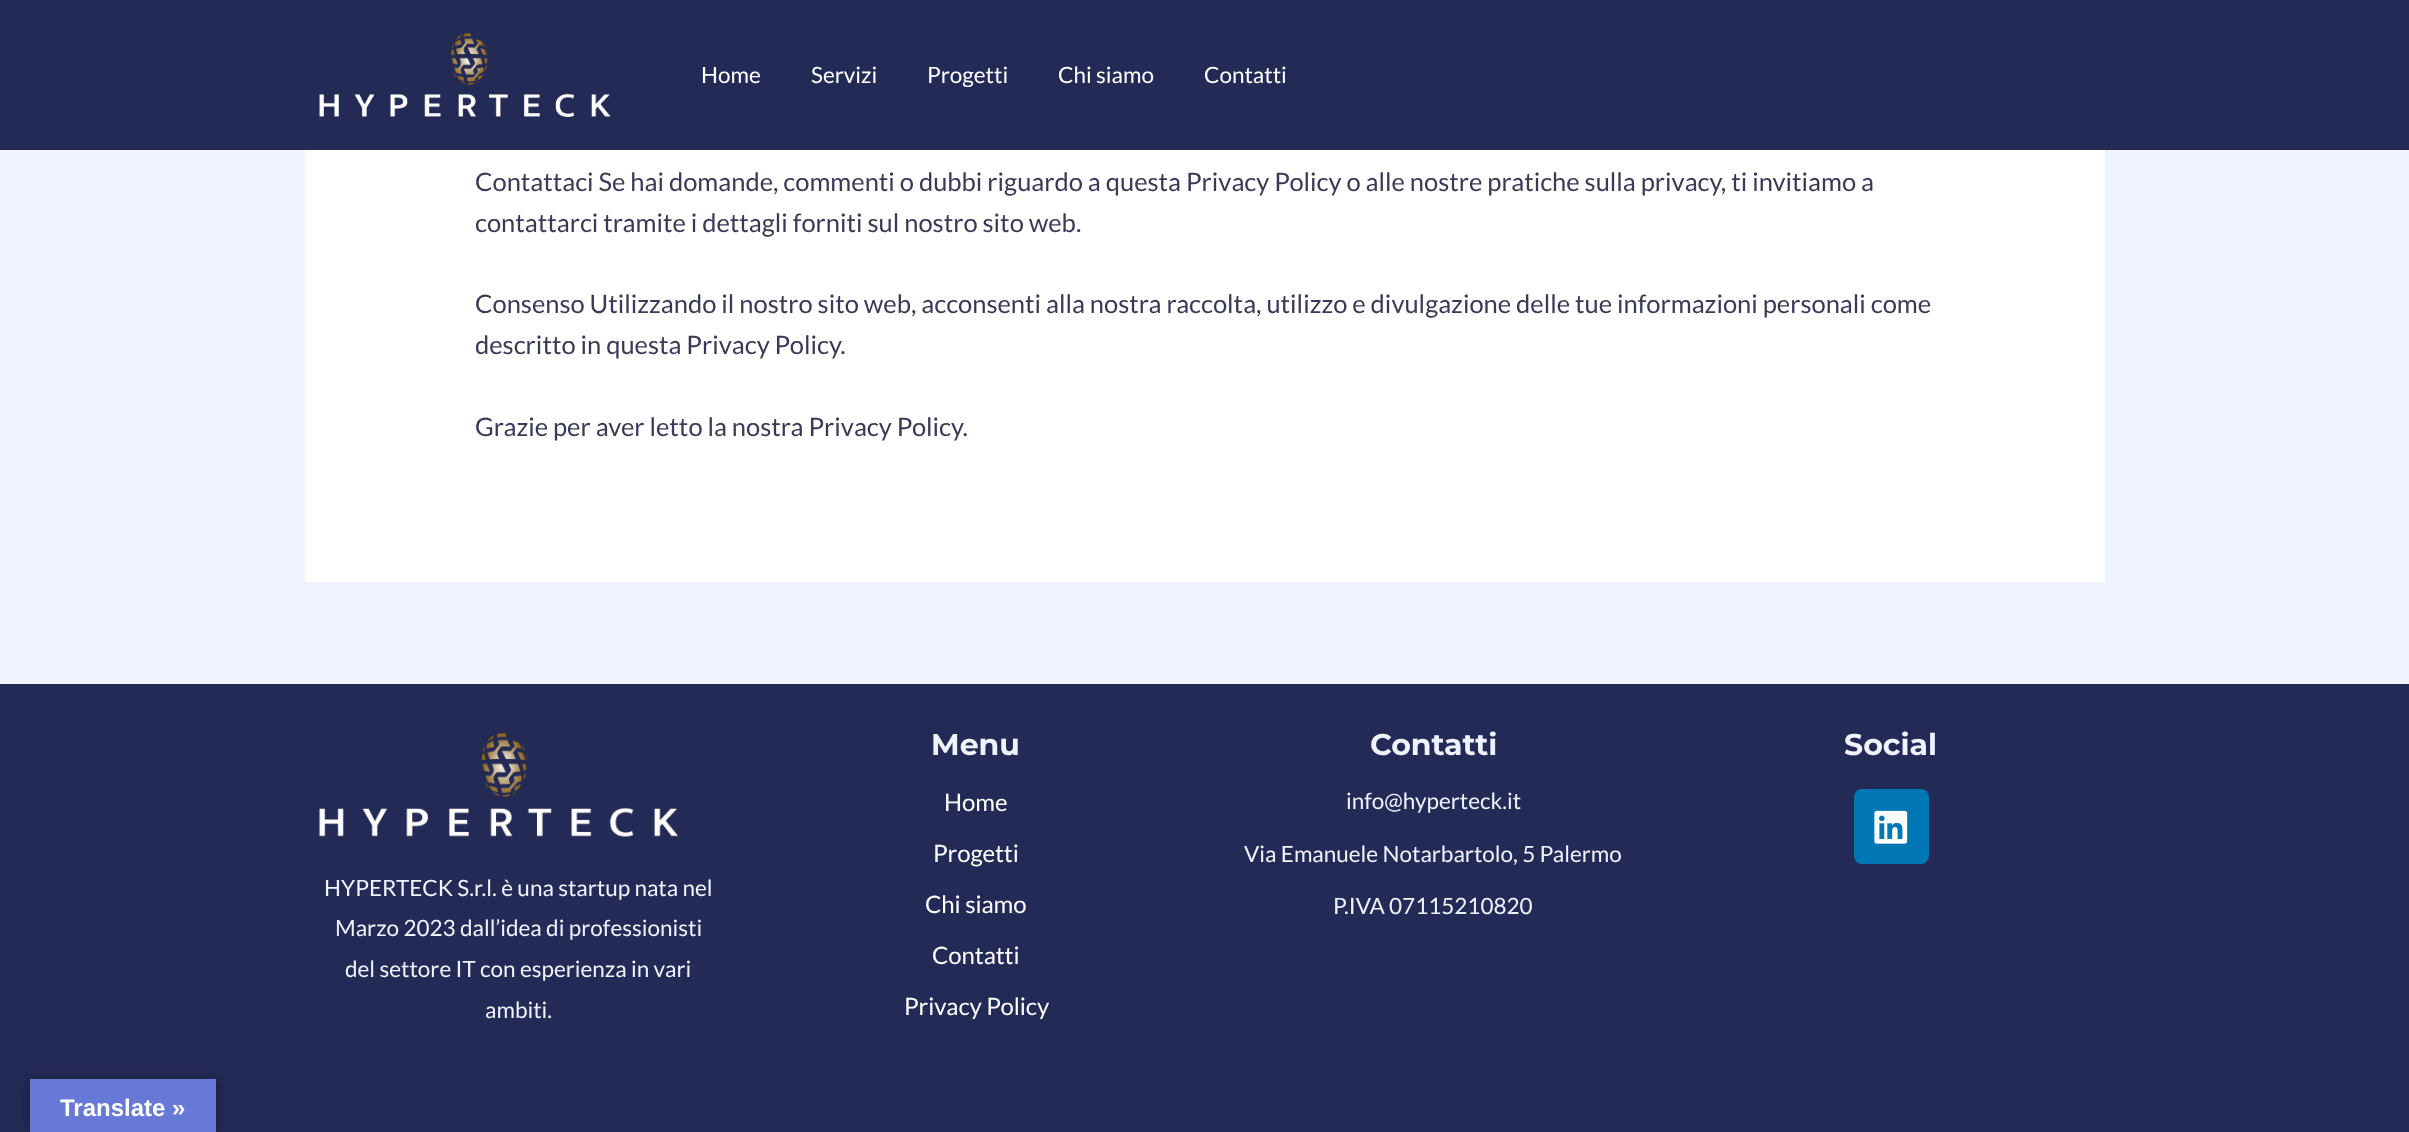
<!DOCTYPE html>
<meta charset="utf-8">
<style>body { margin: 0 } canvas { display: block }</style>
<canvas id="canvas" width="2409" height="1132"></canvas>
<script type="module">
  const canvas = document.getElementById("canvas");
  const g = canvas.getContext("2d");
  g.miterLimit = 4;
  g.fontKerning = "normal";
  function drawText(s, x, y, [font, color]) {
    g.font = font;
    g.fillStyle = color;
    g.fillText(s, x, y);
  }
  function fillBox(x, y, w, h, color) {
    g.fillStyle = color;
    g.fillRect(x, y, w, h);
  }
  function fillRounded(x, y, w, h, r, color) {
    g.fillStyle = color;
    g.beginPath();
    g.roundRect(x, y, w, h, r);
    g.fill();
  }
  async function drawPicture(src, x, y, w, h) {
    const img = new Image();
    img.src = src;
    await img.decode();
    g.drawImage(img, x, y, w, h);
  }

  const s1 = ["22.5px Lato", "#FFFFFF"];
  const s2 = ["25.5px Lato", "#393A56"];
  const s3 = ["22.5px Lato", "#EFF2FF"];
  const s4 = ["100 30px Montserrat", "#EFF2FF"];
  const s5 = ["24px Lato", "#FFFFFF"];
  const s6 = ["bold 24px Liberation Sans", "#FFFFFF"];

  fillBox(0, 0, 2409, 1132, "#EFF2FF");
  fillBox(0, 0, 2409, 150, "#242A56");
  await drawPicture("pic1.png", 319, 33, 292, 84);
  drawText("Home", 701, 83, s1);
  drawText("Servizi", 811, 83, s1);
  drawText("Progetti", 927, 83, s1);
  drawText("Chi siamo", 1058, 83, s1);
  drawText("Contatti", 1204, 83, s1);
  fillBox(305, 150, 1800, 432, "#FFFFFF");
  drawText("Contattaci Se hai domande, commenti o dubbi riguardo a questa Privacy Policy o alle nostre pratiche sulla privacy, ti invitiamo a", 475, 191, s2);
  drawText("contattarci tramite i dettagli forniti sul nostro sito web.", 475, 232, s2);
  drawText("Consenso Utilizzando il nostro sito web, acconsenti alla nostra raccolta, utilizzo e divulgazione delle tue informazioni personali come", 475, 313, s2);
  drawText("descritto in questa Privacy Policy.", 475, 354, s2);
  drawText("Grazie per aver letto la nostra Privacy Policy.", 475, 436, s2);
  fillBox(0, 684, 2409, 448, "#242A56");
  await drawPicture("pic2.png", 319, 733, 359, 104);
  drawText("HYPERTECK S.r.l. è una startup nata nel", 324, 896, s3);
  drawText("Marzo 2023 dall’idea di professionisti", 335, 936, s3);
  drawText("del settore IT con esperienza in vari", 345, 977, s3);
  drawText("ambiti.", 485, 1018, s3);
  drawText("Menu", 931, 755, s4);
  g.letterSpacing = "-0.1px";
  drawText("Home", 944, 811, s5);
  drawText("Progetti", 933, 862, s5);
  drawText("Chi siamo", 925, 913, s5);
  drawText("Contatti", 932, 964, s5);
  drawText("Privacy Policy", 904, 1015, s5);
  g.letterSpacing = "0px";
  drawText("Contatti", 1370, 755, s4);
  drawText("info@hyperteck.it", 1346, 809, s3);
  drawText("Via Emanuele Notarbartolo, 5 Palermo", 1244, 862, s3);
  drawText("P.IVA 07115210820", 1333, 914, s3);
  drawText("Social", 1844, 755, s4);
  fillRounded(1854, 789, 75, 75, 8, "#0077B5");
  await drawPicture("pic3.png", 1874, 810, 34, 34);
  g.fillStyle = "rgba(0, 0, 0, 0.3)";
  g.filter = "blur(7px)";
  g.beginPath();
  g.rect(30, 1079, 186, 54);
  g.fill();
  g.filter = "none";
  fillBox(30, 1079, 186, 53, "#6878D6");
  drawText("Translate »", 60, 1116, s6);
</script>
